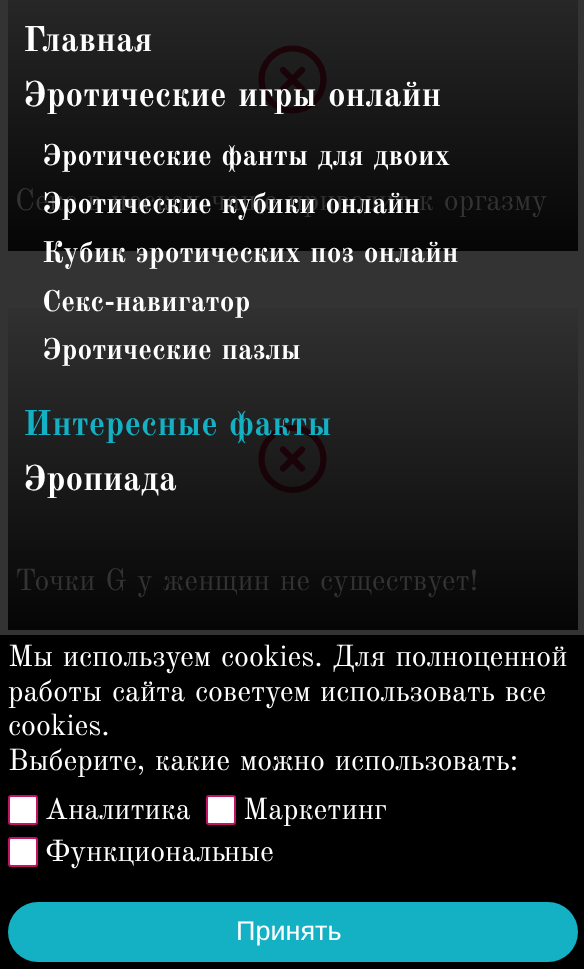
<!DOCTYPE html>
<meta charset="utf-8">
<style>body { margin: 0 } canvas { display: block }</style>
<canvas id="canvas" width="584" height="969"></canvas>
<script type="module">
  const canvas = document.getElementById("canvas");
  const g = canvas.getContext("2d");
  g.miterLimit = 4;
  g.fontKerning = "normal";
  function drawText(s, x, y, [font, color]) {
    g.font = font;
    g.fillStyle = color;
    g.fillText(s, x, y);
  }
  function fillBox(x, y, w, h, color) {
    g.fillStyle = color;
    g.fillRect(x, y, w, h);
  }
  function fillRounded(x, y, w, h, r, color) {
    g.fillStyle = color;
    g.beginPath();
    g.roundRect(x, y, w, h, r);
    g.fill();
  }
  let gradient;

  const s1 = ["bold 35.1px Old Standard TT", "#FFFFFF"];
  const s2 = ["bold 29.25px Old Standard TT", "#FFFFFF"];
  const s3 = ["30px Old Standard TT", "#333333"];
  const s4 = ["bold 35.1px Old Standard TT", "#14B1C5"];
  const s5 = ["30px Old Standard TT", "#FFFFFF"];
  const s6 = ["27px Liberation Sans", "#FFFFFF"];

  fillBox(0, 0, 584, 969, "#333333");
  g.beginPath();
  g.arc(292.5, 79.5, 31, 0, Math.PI * 2);
  g.strokeStyle = "#2E060F";
  g.lineWidth = 6.2;
  g.stroke();
  g.beginPath();
  g.moveTo(302, 70);
  g.lineTo(283, 89);
  g.moveTo(283, 70);
  g.lineTo(302, 89);
  g.lineCap = "round";
  g.lineJoin = "round";
  g.stroke();
  gradient = g.createLinearGradient(293, -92, 293, 251);
  gradient.addColorStop(0, "rgba(0, 0, 0, 0)");
  gradient.addColorStop(1, "rgba(0, 0, 0, 0.9)");
  g.fillStyle = gradient;
  g.fillRect(8, 0, 570, 251);
  drawText("Главная", 23, 51, s1);
  g.wordSpacing = "1.5px";
  drawText("Эротические игры онлайн", 23, 106, s1);
  drawText("Эротические фанты для двоих", 42, 165, s2);
  drawText("Секс в носках чаще приводит к оргазму", 15, 210, s3);
  drawText("Эротические кубики онлайн", 42, 213, s2);
  drawText("Кубик эротических поз онлайн", 42, 262, s2);
  g.beginPath();
  g.arc(292.5, 459, 31, 0, Math.PI * 2);
  g.stroke();
  g.beginPath();
  g.moveTo(302, 449.5);
  g.lineTo(283, 468.5);
  g.moveTo(283, 449.5);
  g.lineTo(302, 468.5);
  g.stroke();
  gradient = g.createLinearGradient(293, 288, 293, 630);
  gradient.addColorStop(0, "rgba(0, 0, 0, 0)");
  gradient.addColorStop(1, "rgba(0, 0, 0, 0.9)");
  g.fillStyle = gradient;
  g.fillRect(8, 308, 570, 322);
  g.wordSpacing = "0px";
  drawText("Секс-навигатор", 42, 311, s2);
  g.wordSpacing = "1.5px";
  drawText("Эротические пазлы", 42, 359, s2);
  drawText("Интересные факты", 23, 435, s4);
  g.wordSpacing = "0px";
  drawText("Эропиада", 23, 490, s1);
  g.wordSpacing = "1.5px";
  drawText("Точки G", 15, 590, s3);
  drawText("у женщин не существует!", 137, 590, s3);
  fillBox(0, 635, 584, 334, "#000000");
  drawText("Мы используем cookies. Для полноценной", 8, 666, s5);
  drawText("работы сайта советуем", 8, 701, s5);
  drawText("использовать все", 320, 701, s5);
  g.wordSpacing = "0px";
  drawText("cookies.", 8, 735, s5);
  g.wordSpacing = "1.5px";
  drawText("Выберите, какие можно использовать:", 8, 770, s5);
  g.beginPath();
  g.roundRect(9, 796, 28, 28, 2);
  g.fill();
  g.strokeStyle = "#C41367";
  g.lineWidth = 2;
  g.lineJoin = "miter";
  g.stroke();
  g.wordSpacing = "0px";
  drawText("Аналитика", 45, 819, s5);
  g.beginPath();
  g.roundRect(207, 796, 28, 28, 2);
  g.fill();
  g.stroke();
  drawText("Маркетинг", 243, 819, s5);
  g.beginPath();
  g.roundRect(9, 838, 28, 28, 2);
  g.fill();
  g.stroke();
  drawText("Функциональные", 45, 861, s5);
  fillRounded(8, 902, 570, 60, 30, "#14B1C5");
  drawText("Принять", 236, 940, s6);
</script>
